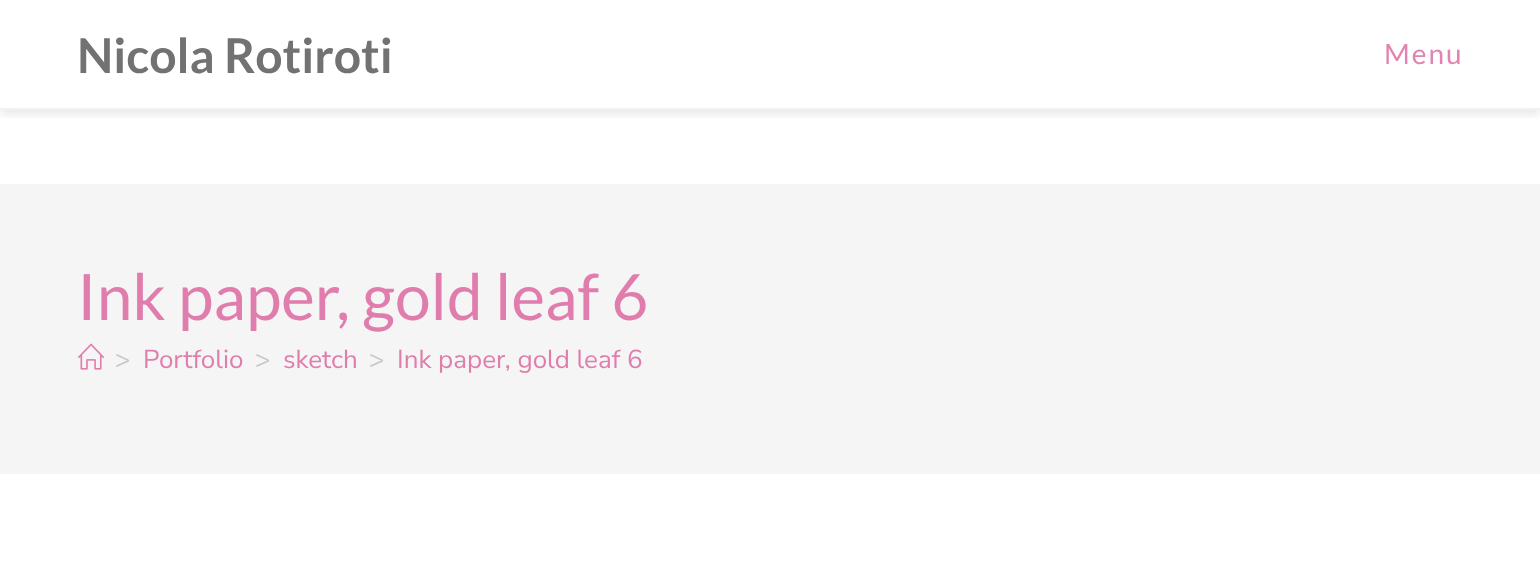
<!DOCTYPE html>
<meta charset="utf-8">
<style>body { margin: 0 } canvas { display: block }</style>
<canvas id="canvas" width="1540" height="588"></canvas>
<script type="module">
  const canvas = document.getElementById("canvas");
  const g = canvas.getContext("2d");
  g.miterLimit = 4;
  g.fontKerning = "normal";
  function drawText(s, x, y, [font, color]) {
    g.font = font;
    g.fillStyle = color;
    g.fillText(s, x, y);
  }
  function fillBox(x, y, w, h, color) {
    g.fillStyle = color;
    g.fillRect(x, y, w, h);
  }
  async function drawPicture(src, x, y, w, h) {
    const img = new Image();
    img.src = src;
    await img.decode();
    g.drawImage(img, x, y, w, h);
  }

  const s1 = ["bold 48px Lato", "#727272"];
  const s2 = ["28px Lato", "#E284B1"];
  const s3 = ["64px Lato", "#E07DAD"];
  const s4 = ["26px Nunito", "#C6C6C6"];
  const s5 = ["26px Nunito Sans", "#E07DAD"];

  fillBox(0, 0, 1540, 588, "#FFFFFF");
  g.save();
  g.beginPath();
  g.rect(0, 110, 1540, 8);
  g.clip();
  g.fillStyle = "rgba(13, 13, 13, 0.1)";
  g.filter = "blur(5px)";
  g.beginPath();
  g.rect(0, 4, 1540, 110);
  g.fill();
  g.filter = "none";
  g.restore();
  fillBox(0, 108, 1540, 2, "#F2F2F2");
  drawText("Nicola Rotiroti", 77, 73, s1);
  g.letterSpacing = "2px";
  drawText("Menu", 1384, 64, s2);
  fillBox(0, 184, 1540, 290, "#F5F5F5");
  g.letterSpacing = "0px";
  drawText("Ink paper, gold leaf 6", 77, 320, s3);
  await drawPicture("pic1.png", 78, 343, 26, 27);
  drawText(">", 115, 368, s4);
  drawText("Portfolio", 143, 368, s5);
  drawText(">", 255, 368, s4);
  drawText("sketch", 283, 368, s5);
  drawText(">", 369, 368, s4);
  drawText("Ink paper, gold leaf 6", 397, 368, s5);
</script>
